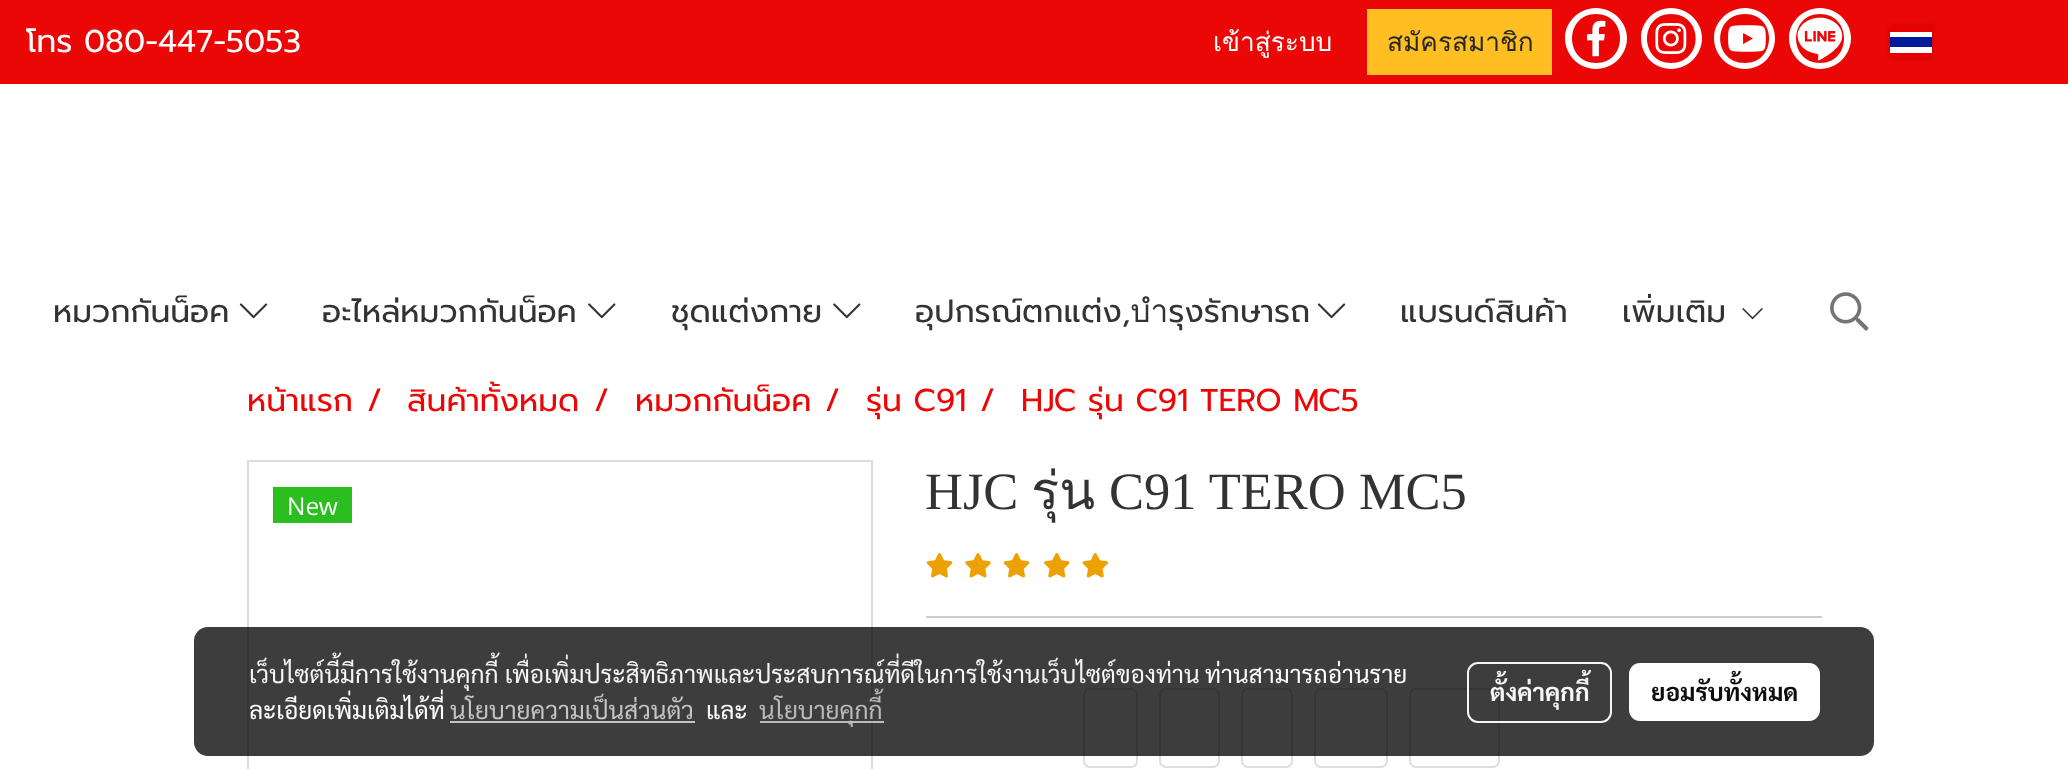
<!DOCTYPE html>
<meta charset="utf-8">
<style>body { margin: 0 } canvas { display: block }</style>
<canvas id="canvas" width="2068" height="769"></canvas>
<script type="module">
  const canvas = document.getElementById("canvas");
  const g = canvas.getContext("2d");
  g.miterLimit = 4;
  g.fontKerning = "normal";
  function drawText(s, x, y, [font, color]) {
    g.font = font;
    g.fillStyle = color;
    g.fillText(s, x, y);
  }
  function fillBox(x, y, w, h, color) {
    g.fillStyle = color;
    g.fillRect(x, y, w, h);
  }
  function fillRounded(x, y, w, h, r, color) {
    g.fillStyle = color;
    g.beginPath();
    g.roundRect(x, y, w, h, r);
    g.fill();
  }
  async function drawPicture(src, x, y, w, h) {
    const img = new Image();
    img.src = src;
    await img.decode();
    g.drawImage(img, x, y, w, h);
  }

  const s1 = ["31.5px Prompt", "#FFFFFF"];
  const s2 = ["26.25px Loma", "#FFFFFF"];
  const s3 = ["26.25px Loma", "#272727"];
  const s4 = ["31.5px Prompt", "#333333"];
  const s5 = ["31.5px Prompt", "#EB0706"];
  const s6 = ["24.5px Open Sans", "#FFFFFF"];
  const s7 = ["52.5px Liberation Serif", "#333333"];
  const s8 = ["52.5px Loma", "#333333"];
  const s9 = ["24.5px Sarabun", "#F5F5F5"];
  const s10 = ["24.5px Sarabun", "#FFFFFF"];
  const s11 = ["24.5px Sarabun", "#C5C5C5"];
  const s12 = ["24.5px Sarabun", "#BBBBBB"];
  const s13 = ["bold 24.5px Sarabun", "#F5F5F5"];
  const s14 = ["bold 24.5px Sarabun", "#0D0D0D"];

  fillBox(0, 0, 2068, 769, "#FFFFFF");
  fillBox(0, 0, 2068, 84, "#EB0706");
  drawText("โทร 080-447-5053", 26, 52, s1);
  drawText("เข้าสู่ระบบ", 1213, 51, s2);
  fillBox(1367, 9, 185, 66, "#FFBE22");
  drawText("สมัครสมาชิก", 1387, 51, s3);
  g.fillStyle = "#FFFFFF";
  g.beginPath();
  g.moveTo(1596, 8);
  g.bezierCurveTo(1579, 8, 1565, 22, 1565, 38);
  g.bezierCurveTo(1565, 55, 1579, 69, 1596, 69);
  g.bezierCurveTo(1613, 69, 1627, 55, 1627, 38);
  g.bezierCurveTo(1627, 22, 1613, 8, 1596, 8);
  g.closePath();
  g.moveTo(1596, 63);
  g.bezierCurveTo(1564, 63, 1564, 14, 1596, 14);
  g.bezierCurveTo(1628, 14, 1628, 63, 1596, 63);
  g.closePath();
  g.fill();
  await drawPicture("pic1.png", 1587, 20, 19, 37);
  g.beginPath();
  g.moveTo(1671, 8);
  g.bezierCurveTo(1654, 8, 1641, 22, 1641, 38);
  g.bezierCurveTo(1641, 55, 1654, 69, 1671, 69);
  g.bezierCurveTo(1688, 69, 1702, 55, 1702, 38);
  g.bezierCurveTo(1702, 22, 1688, 8, 1671, 8);
  g.closePath();
  g.moveTo(1671, 63);
  g.bezierCurveTo(1639, 63, 1639, 14, 1671, 14);
  g.bezierCurveTo(1704, 14, 1704, 63, 1671, 63);
  g.closePath();
  g.fill();
  await drawPicture("pic2.png", 1655, 23, 32, 31);
  g.beginPath();
  g.moveTo(1745, 8);
  g.bezierCurveTo(1728, 8, 1714, 22, 1714, 38);
  g.bezierCurveTo(1714, 55, 1728, 69, 1745, 69);
  g.bezierCurveTo(1762, 69, 1775, 55, 1775, 38);
  g.bezierCurveTo(1775, 22, 1762, 8, 1745, 8);
  g.closePath();
  g.moveTo(1745, 63);
  g.bezierCurveTo(1712, 63, 1712, 14, 1745, 14);
  g.bezierCurveTo(1777, 14, 1777, 63, 1745, 63);
  g.closePath();
  g.fill();
  await drawPicture("pic3.png", 1728, 25, 38, 27);
  g.beginPath();
  g.moveTo(1820, 8);
  g.bezierCurveTo(1803, 8, 1789, 22, 1789, 38);
  g.bezierCurveTo(1789, 55, 1803, 69, 1820, 69);
  g.bezierCurveTo(1837, 69, 1851, 55, 1851, 38);
  g.bezierCurveTo(1851, 22, 1837, 8, 1820, 8);
  g.closePath();
  g.moveTo(1820, 63);
  g.bezierCurveTo(1788, 63, 1788, 14, 1820, 14);
  g.bezierCurveTo(1852, 14, 1852, 63, 1820, 63);
  g.closePath();
  g.fill();
  await drawPicture("pic4.png", 1797, 17, 46, 44);
  g.fillStyle = "rgba(0, 0, 0, 0.25)";
  g.filter = "blur(2px)";
  g.beginPath();
  g.rect(1890, 26, 42, 32);
  g.fill();
  g.filter = "none";
  fillBox(1890, 32, 42, 21, "#FFFFFF");
  fillBox(1890, 37, 42, 10, "#001B9A");
  fillBox(1890, 26, 42, 6, "#E70000");
  fillBox(1890, 53, 42, 5, "#E70000");
  drawText("หมวกกันน็อค", 53, 322, s4);
  await drawPicture("pic5.png", 239, 303, 29, 16);
  drawText("อะไหล่หมวกกันน็อค", 322, 322, s4);
  await drawPicture("pic6.png", 588, 303, 28, 16);
  drawText("ชุดแต่งกาย", 671, 322, s4);
  await drawPicture("pic6.png", 833, 303, 28, 16);
  drawText("อุปกรณ์ตกแต่ง,บำรุงรักษารถ", 915, 322, s4);
  await drawPicture("pic5.png", 1317, 303, 29, 16);
  drawText("แบรนด์สินค้า", 1400, 322, s4);
  drawText("เพิ่มเติม", 1622, 322, s4);
  await drawPicture("pic7.png", 1742, 308, 21, 12);
  await drawPicture("pic8.png", 1830, 292, 39, 39);
  drawText("หน้าแรก", 247, 411, s5);
  drawText("/", 367, 411, s5);
  drawText("สินค้าทั้งหมด", 407, 411, s5);
  drawText("/", 594, 411, s5);
  drawText("หมวกกันน็อค", 635, 411, s5);
  drawText("/", 825, 411, s5);
  drawText("รุ่น C91", 866, 411, s5);
  drawText("/", 980, 411, s5);
  drawText("HJC รุ่น C91 TERO MC5", 1021, 411, s5);
  g.strokeStyle = "#DDDDDD";
  g.lineWidth = 2;
  g.strokeRect(248, 461, 624, 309);
  fillBox(273, 487, 79, 36, "#2BBE1F");
  drawText("New", 287, 515, s6);
  drawText("HJC", 925, 509, s7);
  drawText("รุ่น", 1031, 509, s8);
  drawText("C91 TERO MC5", 1109, 509, s7);
  await drawPicture("pic9.png", 926, 553, 27, 25);
  await drawPicture("pic10.png", 965, 553, 26, 25);
  await drawPicture("pic9.png", 1003, 553, 27, 25);
  await drawPicture("pic11.png", 1044, 553, 26, 25);
  await drawPicture("pic12.png", 1082, 553, 26, 25);
  fillBox(926, 616, 896, 2, "#CCCCCC");
  g.beginPath();
  g.roundRect(1084, 689, 53, 78, 6);
  g.strokeStyle = "#DEDEDE";
  g.stroke();
  g.beginPath();
  g.roundRect(1160, 689, 59, 78, 6);
  g.stroke();
  g.beginPath();
  g.roundRect(1242, 689, 50, 78, 6);
  g.stroke();
  g.beginPath();
  g.roundRect(1315, 689, 72, 78, 6);
  g.stroke();
  g.beginPath();
  g.roundRect(1410, 689, 89, 78, 6);
  g.stroke();
  fillRounded(194, 627, 1680, 129, 14, "rgba(0, 0, 0, 0.76)");
  drawText("เว็บไซต์นี้มีการใช้งานคุกกี้ เพื่อเพิ่มประสิทธิภาพและประสบการณ์ที่ดีในการใช้งานเว็บไซต์ของท่าน", 249, 683, s9);
  drawText("ท่านสามารถอ่านราย", 1205, 683, s10);
  drawText("ละเอียดเพิ่มเติมได้ที่", 249, 719, s10);
  drawText("นโยบายความเป็นส่วนตัว", 450, 719, s11);
  fillBox(450, 721, 245, 2, "#C5C5C5");
  drawText("และ", 706, 719, s10);
  fillBox(760, 721, 124, 2, "rgba(194, 194, 194, 0.95)");
  drawText("นโยบายคุกกี้", 759, 719, s12);
  g.beginPath();
  g.roundRect(1468, 663, 143, 59, 10);
  g.strokeStyle = "rgba(255, 255, 255, 0.95)";
  g.stroke();
  drawText("ตั้งค่าคุกกี้", 1490, 701, s13);
  fillRounded(1629, 663, 191, 58, 11, "#FFFFFF");
  drawText("ยอมรับทั้งหมด", 1651, 701, s14);
</script>
